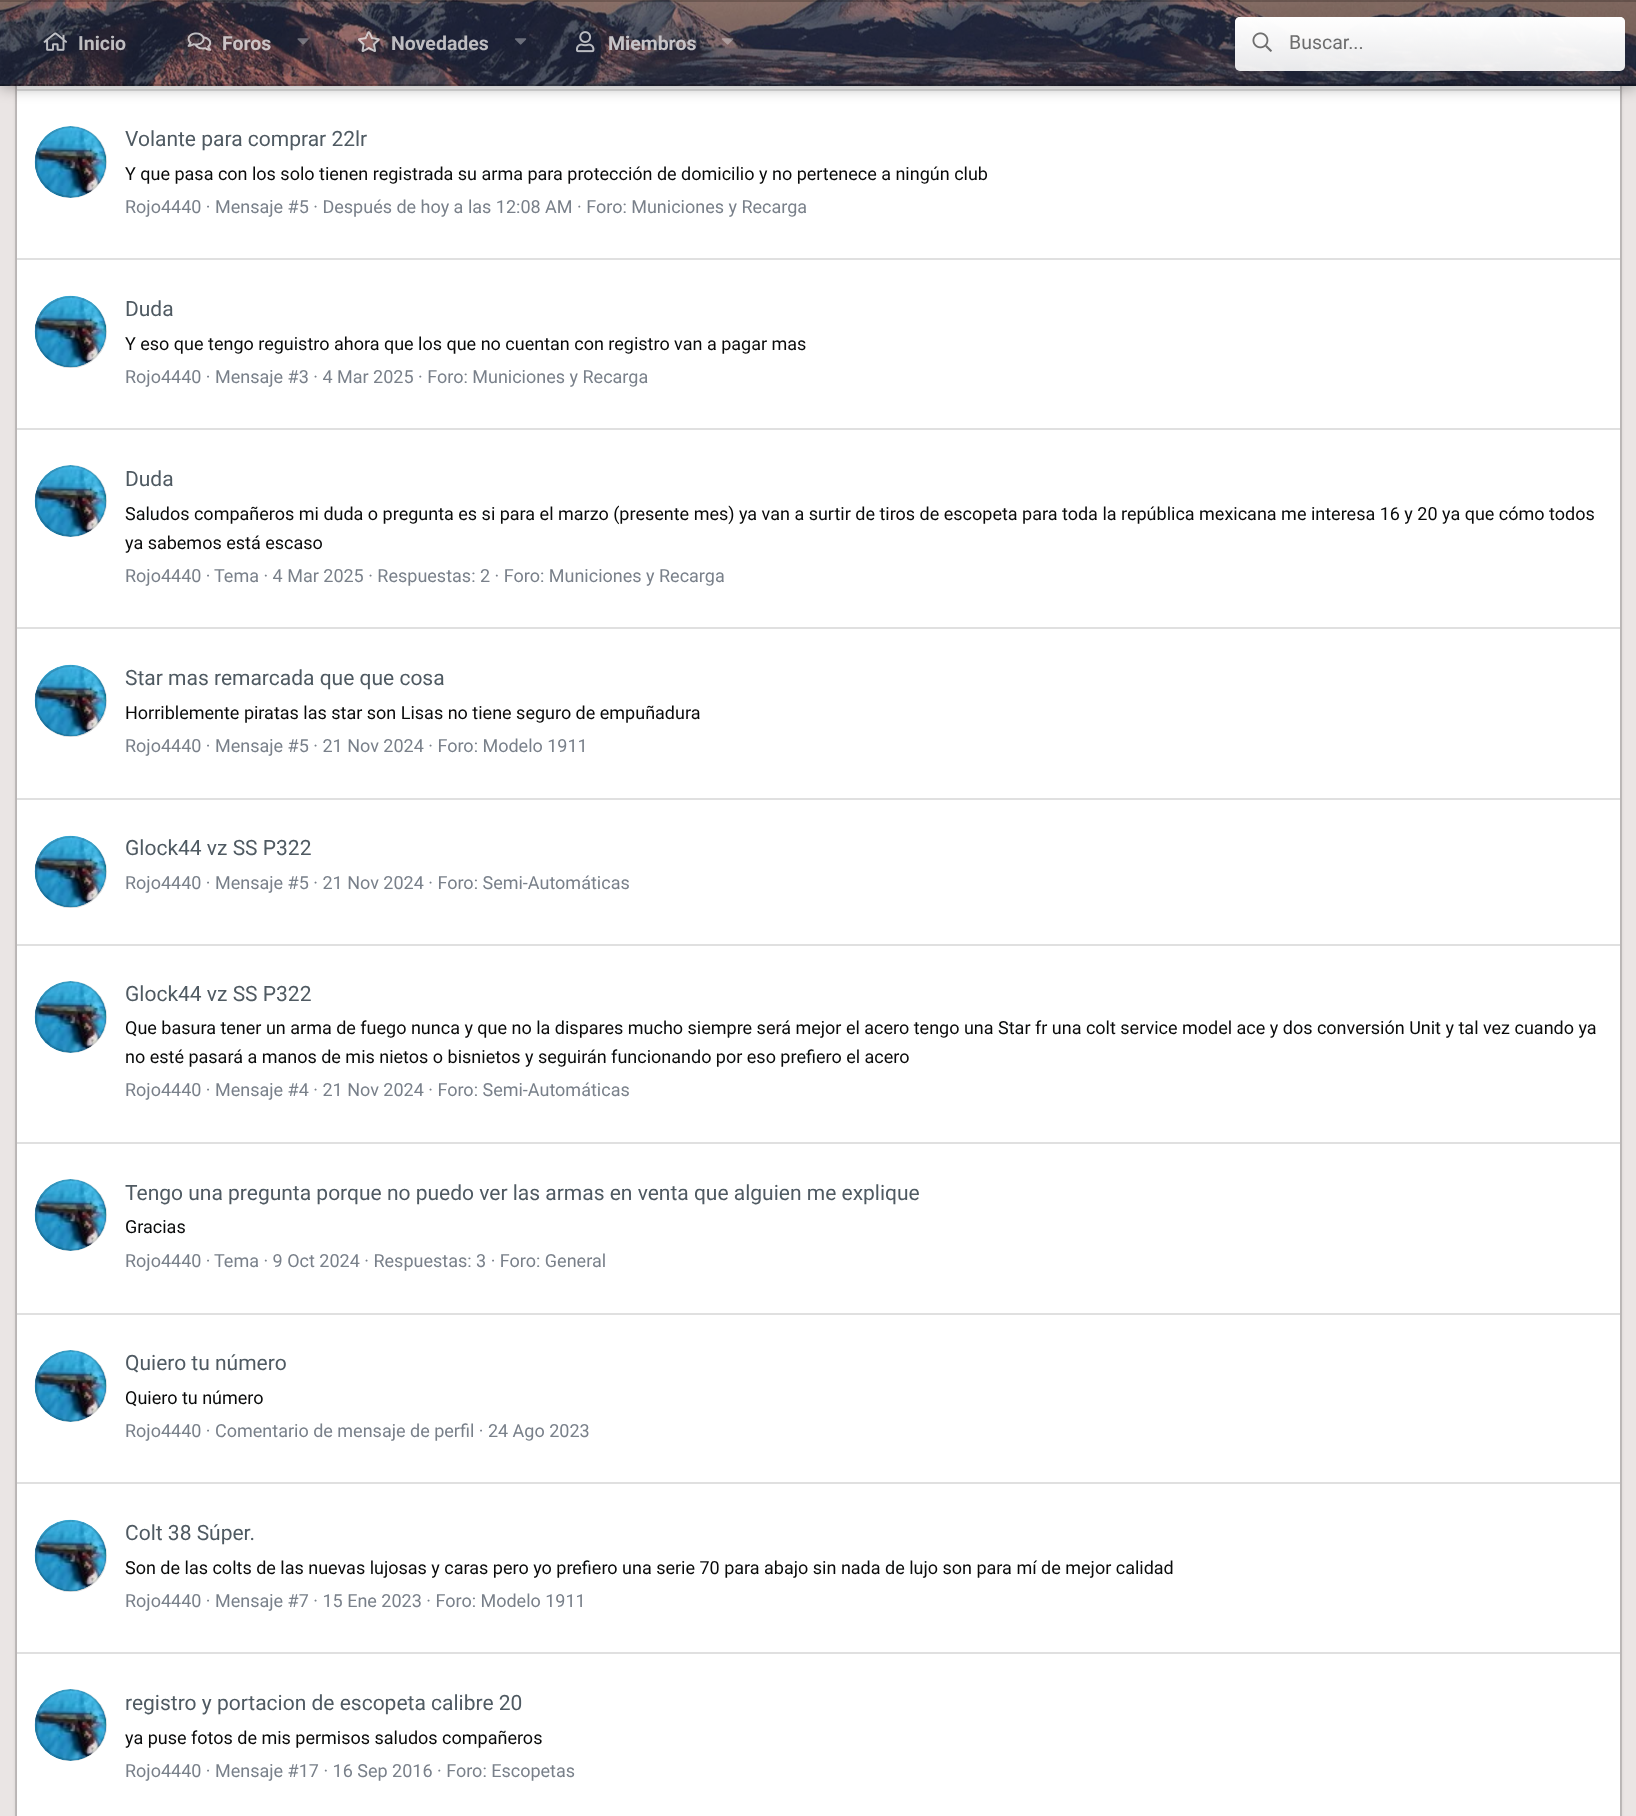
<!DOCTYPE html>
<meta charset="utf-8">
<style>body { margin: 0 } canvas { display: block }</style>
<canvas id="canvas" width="1636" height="1816"></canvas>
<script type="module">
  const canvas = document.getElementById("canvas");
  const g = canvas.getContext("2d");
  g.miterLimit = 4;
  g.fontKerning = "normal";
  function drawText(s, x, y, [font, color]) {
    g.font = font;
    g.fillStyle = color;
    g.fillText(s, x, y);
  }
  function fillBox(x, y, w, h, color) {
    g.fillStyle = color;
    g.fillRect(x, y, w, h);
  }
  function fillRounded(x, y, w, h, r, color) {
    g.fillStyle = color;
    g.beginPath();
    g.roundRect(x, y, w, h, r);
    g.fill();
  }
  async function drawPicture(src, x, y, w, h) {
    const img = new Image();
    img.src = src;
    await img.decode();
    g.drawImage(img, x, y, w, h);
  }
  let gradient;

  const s1 = ["bold 19.5px Roboto", "#BEBDC1"];
  const s2 = ["bold 19.5px Roboto", "#CCC4C6"];
  const s3 = ["bold 19.5px Roboto", "#C6C4C8"];
  const s4 = ["19.5px Roboto", "#6D6D6D"];
  const s5 = ["21px Roboto", "#4F5A62"];
  const s6 = ["18px Roboto", "#090A0A"];
  const s7 = ["18px Roboto", "#79808A"];

  fillBox(0, 0, 1636, 1816, "#EAE5E4");
  g.fillStyle = "rgba(0, 0, 0, 0.08)";
  g.filter = "blur(1.5px)";
  g.beginPath();
  g.roundRect(15, -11, 1607, 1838, 6);
  g.fill();
  g.filter = "none";
  fillBox(17, 86, 1603, 1730, "#FFFFFF");
  g.strokeStyle = "rgba(20, 20, 20, 0.16)";
  g.lineWidth = 2;
  g.strokeRect(16, -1, 1605, 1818);
  fillBox(17, 89, 1603, 2, "#E0E0E0");
  g.fillStyle = "rgba(0, 0, 0, 0.35)";
  g.filter = "blur(7.5px)";
  g.beginPath();
  g.rect(0, -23, 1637, 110);
  g.fill();
  g.filter = "none";
  await drawPicture("pic1.png", 0, 0, 1636, 86);
  fillBox(0, 0, 1636, 2, "rgba(0, 0, 0, 0.2)");
  fillBox(0, 84, 1636, 2, "rgba(0, 0, 0, 0.2)");
  await drawPicture("pic2.png", 43, 32, 25, 19);
  drawText("Inicio", 78, 50, s1);
  await drawPicture("pic3.png", 187, 32, 25, 19);
  drawText("Foros", 222, 50, s2);
  await drawPicture("pic4.png", 297, 38, 12, 7);
  await drawPicture("pic5.png", 357, 31, 23, 22);
  drawText("Novedades", 391, 50, s1);
  await drawPicture("pic6.png", 515, 38, 12, 7);
  await drawPicture("pic7.png", 576, 31, 19, 22);
  drawText("Miembros", 608, 50, s3);
  await drawPicture("pic8.png", 722, 38, 12, 7);
  fillRounded(1235, 17, 390, 54, 5, "rgba(255, 255, 255, 0.9)");
  gradient = g.createLinearGradient(1430, 16, 1430, 71);
  gradient.addColorStop(0, "#FFFFFF");
  gradient.addColorStop(1, "rgba(255, 255, 255, 0)");
  g.fillStyle = gradient;
  g.beginPath();
  g.roundRect(1235, 17, 390, 54, 5);
  g.fill();
  await drawPicture("pic9.png", 1252, 32, 20, 20);
  drawText("Buscar...", 1289, 49, s4);
  await drawPicture("pic10.png", 34, 126, 73, 72);
  g.beginPath();
  g.arc(71, 162, 35, 0, Math.PI * 2);
  g.strokeStyle = "rgba(9, 10, 10, 0.15)";
  g.stroke();
  drawText("Volante para comprar 22lr", 125, 146, s5);
  drawText("Y que pasa con los solo tienen registrada su arma para protección de domicilio y no pertenece a ningún club", 125, 180, s6);
  drawText("Rojo4440 · Mensaje #5 · Después de hoy a las 12:08 AM · Foro: Municiones y Recarga", 125, 213, s7);
  fillBox(17, 258, 1603, 2, "#E0E0E0");
  await drawPicture("pic11.png", 34, 295, 73, 73);
  g.beginPath();
  g.arc(71, 332, 35, 0, Math.PI * 2);
  g.stroke();
  drawText("Duda", 125, 316, s5);
  drawText("Y eso que tengo reguistro ahora que los que no cuentan con registro van a pagar mas", 125, 350, s6);
  drawText("Rojo4440 · Mensaje #3 · 4 Mar 2025 · Foro: Municiones y Recarga", 125, 383, s7);
  fillBox(17, 428, 1603, 2, "#E0E0E0");
  await drawPicture("pic12.png", 34, 465, 73, 72);
  g.beginPath();
  g.arc(71, 501, 35, 0, Math.PI * 2);
  g.stroke();
  drawText("Duda", 125, 486, s5);
  drawText("Saludos compañeros mi duda o pregunta es si para el marzo (presente mes) ya van a surtir de tiros de escopeta para toda la república mexicana me interesa 16 y 20 ya que cómo todos", 125, 520, s6);
  drawText("ya sabemos está escaso", 125, 549, s6);
  drawText("Rojo4440 ·", 125, 582, s7);
  drawText("Tema · 4 Mar 2025 · Respuestas: 2 · Foro: Municiones y Recarga", 214, 582, s7);
  fillBox(17, 627, 1603, 2, "#E0E0E0");
  await drawPicture("pic11.png", 34, 664, 73, 73);
  g.beginPath();
  g.arc(71, 701, 35, 0, Math.PI * 2);
  g.stroke();
  drawText("Star mas remarcada que que cosa", 125, 685, s5);
  drawText("Horriblemente piratas las star son Lisas no tiene seguro de empuñadura", 125, 719, s6);
  drawText("Rojo4440 · Mensaje #5 · 21 Nov 2024 · Foro: Modelo 1911", 125, 752, s7);
  fillBox(17, 798, 1603, 2, "#E0E0E0");
  await drawPicture("pic13.png", 34, 835, 73, 73);
  g.beginPath();
  g.arc(71, 872, 35, 0, Math.PI * 2);
  g.stroke();
  drawText("Glock44 vz SS P322", 125, 855, s5);
  drawText("Rojo4440 · Mensaje #5 · 21 Nov 2024 · Foro: Semi-Automáticas", 125, 889, s7);
  fillBox(17, 944, 1603, 2, "#E0E0E0");
  await drawPicture("pic12.png", 34, 981, 73, 72);
  g.beginPath();
  g.arc(71, 1017, 35, 0, Math.PI * 2);
  g.stroke();
  drawText("Glock44 vz SS P322", 125, 1001, s5);
  drawText("Que basura tener un arma de fuego nunca y que no la dispares mucho siempre será mejor el acero tengo una Star fr una colt service model ace y dos conversión Unit y tal vez cuando ya", 125, 1034, s6);
  drawText("no esté pasará a manos de mis nietos o bisnietos y seguirán funcionando por eso prefiero el acero", 125, 1063, s6);
  drawText("Rojo4440 · Mensaje #4 · 21 Nov 2024 · Foro: Semi-Automáticas", 125, 1096, s7);
  fillBox(17, 1142, 1603, 2, "#E0E0E0");
  await drawPicture("pic12.png", 34, 1179, 73, 72);
  g.beginPath();
  g.arc(71, 1215, 35, 0, Math.PI * 2);
  g.stroke();
  drawText("Tengo una pregunta porque no puedo ver las armas en venta que alguien me explique", 125, 1200, s5);
  drawText("Gracias", 125, 1233, s6);
  drawText("Rojo4440 ·", 125, 1267, s7);
  drawText("Tema · 9 Oct 2024 · Respuestas: 3 · Foro: General", 214, 1267, s7);
  fillBox(17, 1313, 1603, 2, "#E0E0E0");
  await drawPicture("pic14.png", 34, 1350, 73, 72);
  g.beginPath();
  g.arc(71, 1386, 35, 0, Math.PI * 2);
  g.stroke();
  drawText("Quiero tu número", 125, 1370, s5);
  drawText("Quiero tu número", 125, 1404, s6);
  drawText("Rojo4440 · Comentario de mensaje de perfil · 24 Ago 2023", 125, 1437, s7);
  fillBox(17, 1482, 1603, 2, "#E0E0E0");
  await drawPicture("pic11.png", 34, 1519, 73, 73);
  g.beginPath();
  g.arc(71, 1556, 35, 0, Math.PI * 2);
  g.stroke();
  drawText("Colt 38 Súper.", 125, 1540, s5);
  drawText("Son de las colts de las nuevas lujosas y caras pero yo prefiero una serie 70 para abajo sin nada de lujo son para mí de mejor calidad", 125, 1574, s6);
  drawText("Rojo4440 · Mensaje #7 · 15 Ene 2023 · Foro: Modelo 1911", 125, 1607, s7);
  fillBox(17, 1652, 1603, 2, "#E0E0E0");
  await drawPicture("pic12.png", 34, 1689, 73, 72);
  g.beginPath();
  g.arc(71, 1725, 35, 0, Math.PI * 2);
  g.stroke();
  drawText("registro y portacion de escopeta calibre 20", 125, 1710, s5);
  drawText("ya puse fotos de mis permisos saludos compañeros", 125, 1744, s6);
  drawText("Rojo4440 · Mensaje #17 · 16 Sep 2016 · Foro: Escopetas", 125, 1777, s7);
</script>
